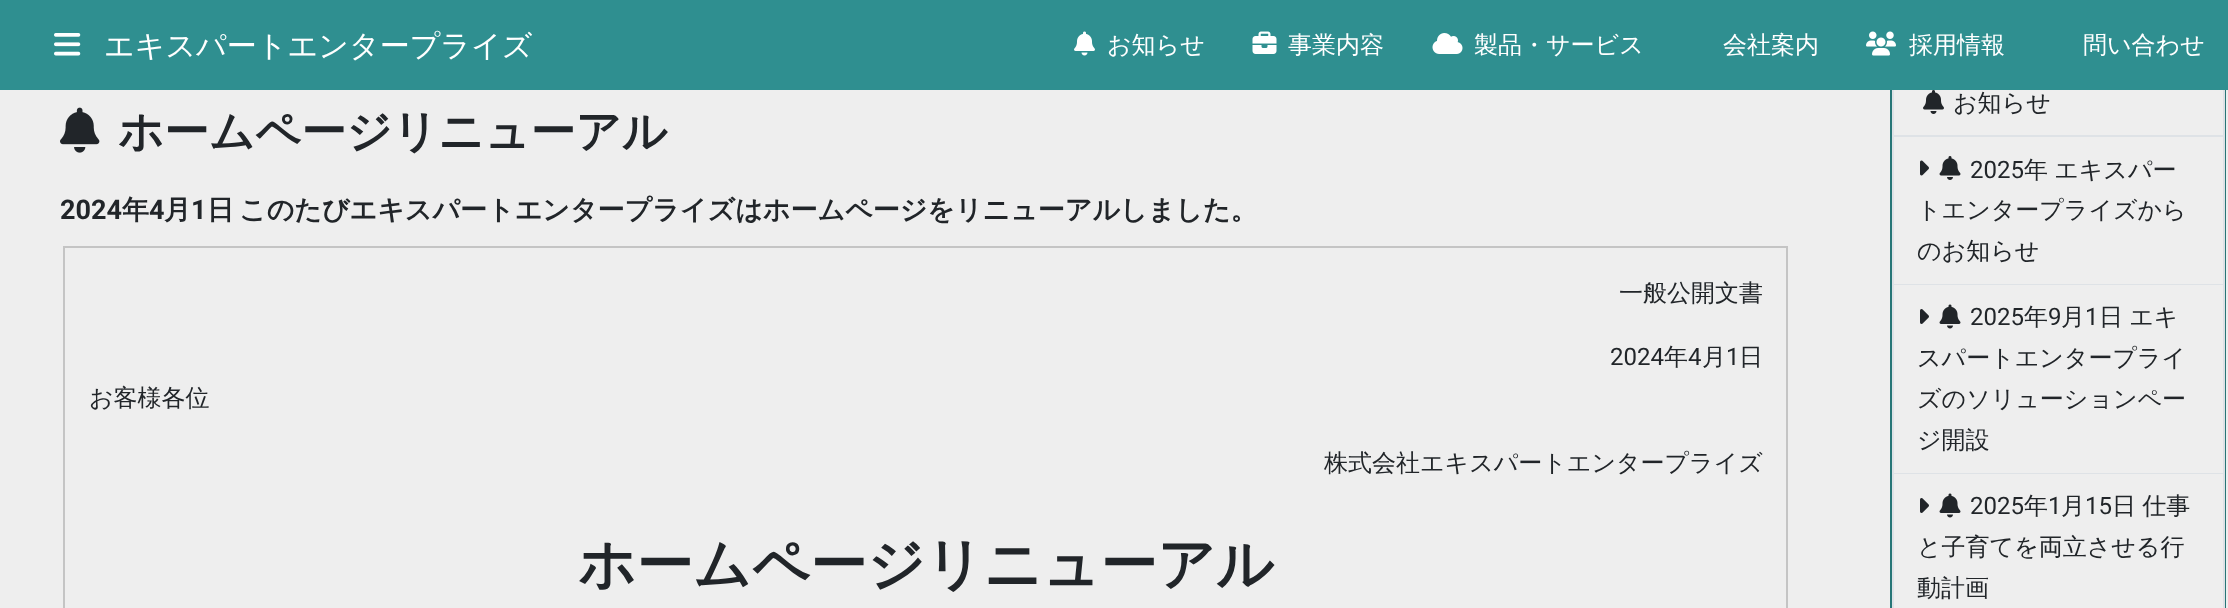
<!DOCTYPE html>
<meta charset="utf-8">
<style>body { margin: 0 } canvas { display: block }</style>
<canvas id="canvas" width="2228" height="608"></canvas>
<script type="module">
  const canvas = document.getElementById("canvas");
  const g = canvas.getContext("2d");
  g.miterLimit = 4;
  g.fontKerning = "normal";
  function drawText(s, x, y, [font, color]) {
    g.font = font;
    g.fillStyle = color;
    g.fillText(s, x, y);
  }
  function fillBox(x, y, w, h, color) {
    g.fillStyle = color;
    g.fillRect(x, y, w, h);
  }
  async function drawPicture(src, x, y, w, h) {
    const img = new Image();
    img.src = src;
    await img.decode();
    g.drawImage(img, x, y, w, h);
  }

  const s1 = ["500 30px WenQuanYi Zen Hei", "#FFFFFF"];
  const s2 = ["500 24px WenQuanYi Zen Hei", "#FFFFFF"];
  const s3 = ["bold 45px WenQuanYi Zen Hei", "#212529"];
  const s4 = ["bold 27px Roboto", "#212529"];
  const s5 = ["bold 27px WenQuanYi Zen Hei", "#212529"];
  const s6 = ["500 24px WenQuanYi Zen Hei", "#212529"];
  const s7 = ["24px Roboto", "#212529"];
  const s8 = ["bold 57px WenQuanYi Zen Hei", "#212529"];

  fillBox(0, 0, 2228, 608, "#EEEEEE");
  g.strokeStyle = "#277677";
  g.lineWidth = 2;
  g.strokeRect(1891, 69, 334, 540);
  g.strokeStyle = "#DEE2E6";
  g.strokeRect(1893, 70, 331, 66);
  fillBox(0, 0, 2228, 90, "#2F8F90");
  await drawPicture("pic1.png", 54, 33, 27, 23);
  drawText("エキスパートエンタープライズ", 104, 56, s1);
  await drawPicture("pic2.png", 1074, 31, 21, 25);
  drawText("お知らせ", 1107, 53, s2);
  await drawPicture("pic3.png", 1252, 31, 25, 23);
  drawText("事業内容", 1288, 53, s2);
  await drawPicture("pic4.png", 1432, 33, 31, 21);
  drawText("製品・サービス", 1474, 53, s2);
  drawText("会社案内", 1723, 53, s2);
  await drawPicture("pic5.png", 1866, 31, 30, 25);
  drawText("採用情報", 1909, 53, s2);
  drawText("問い合わせ", 2083, 53, s2);
  await drawPicture("pic6.png", 60, 107, 40, 46);
  drawText("ホームページリニューアル", 118, 147, s3);
  drawText("2024", 60, 219, s4);
  drawText("年", 122, 219, s5);
  drawText("4", 149, 219, s4);
  drawText("月", 164, 219, s5);
  drawText("1", 191, 219, s4);
  drawText("日", 207, 219, s5);
  drawText("このたびエキスパートエンタープライズはホームページをリニューアルしました。", 239, 219, s5);
  g.strokeStyle = "#C4C4C4";
  g.strokeRect(64, 247, 1723, 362);
  drawText("一般公開文書", 1619, 301, s6);
  drawText("2024", 1610, 365, s7);
  drawText("年", 1664, 365, s6);
  drawText("4", 1688, 365, s7);
  drawText("月", 1702, 365, s6);
  drawText("1", 1726, 365, s7);
  drawText("日", 1739, 365, s6);
  drawText("お客様各位", 89, 406, s6);
  drawText("株式会社エキスパートエンタープライズ", 1324, 471, s6);
  drawText("ホームページリニューアル", 578, 584, s8);
  await drawPicture("pic7.png", 1923, 90, 21, 24);
  drawText("お知らせ", 1953, 111, s6);
  fillBox(2223, 137, 2, 471, "#DEE2E6");
  fillBox(1892, 284, 333, 1, "#DEE2E6");
  fillBox(1892, 137, 2, 148, "#DEE2E6");
  await drawPicture("pic8.png", 1920, 160, 9, 16);
  await drawPicture("pic9.png", 1939, 156, 22, 24);
  drawText("2025", 1970, 178, s7);
  g.wordSpacing = "-1px";
  drawText("年 エキスパー", 2024, 178, s6);
  g.wordSpacing = "0px";
  drawText("トエンタープライズから", 1917, 218, s6);
  drawText("のお知らせ", 1917, 259, s6);
  fillBox(1892, 473, 333, 1, "#DEE2E6");
  fillBox(1892, 285, 2, 323, "#DEE2E6");
  await drawPicture("pic10.png", 1920, 309, 9, 15);
  await drawPicture("pic11.png", 1939, 304, 22, 25);
  drawText("2025", 1970, 325, s7);
  drawText("年", 2024, 325, s6);
  drawText("9", 2048, 325, s7);
  drawText("月", 2061, 325, s6);
  drawText("1", 2085, 325, s7);
  g.wordSpacing = "-1px";
  drawText("日 エキ", 2099, 325, s6);
  g.wordSpacing = "0px";
  drawText("スパートエンタープライ", 1917, 366, s6);
  drawText("ズのソリューションペー", 1917, 407, s6);
  drawText("ジ開設", 1917, 448, s6);
  await drawPicture("pic10.png", 1920, 498, 9, 15);
  await drawPicture("pic11.png", 1939, 493, 22, 25);
  drawText("2025", 1970, 514, s7);
  drawText("年", 2024, 514, s6);
  drawText("1", 2048, 514, s7);
  drawText("月", 2061, 514, s6);
  drawText("15", 2085, 514, s7);
  g.wordSpacing = "-1px";
  drawText("日 仕事", 2112, 514, s6);
  g.wordSpacing = "0px";
  drawText("と子育てを両立させる行", 1917, 555, s6);
  drawText("動計画", 1917, 596, s6);
</script>
